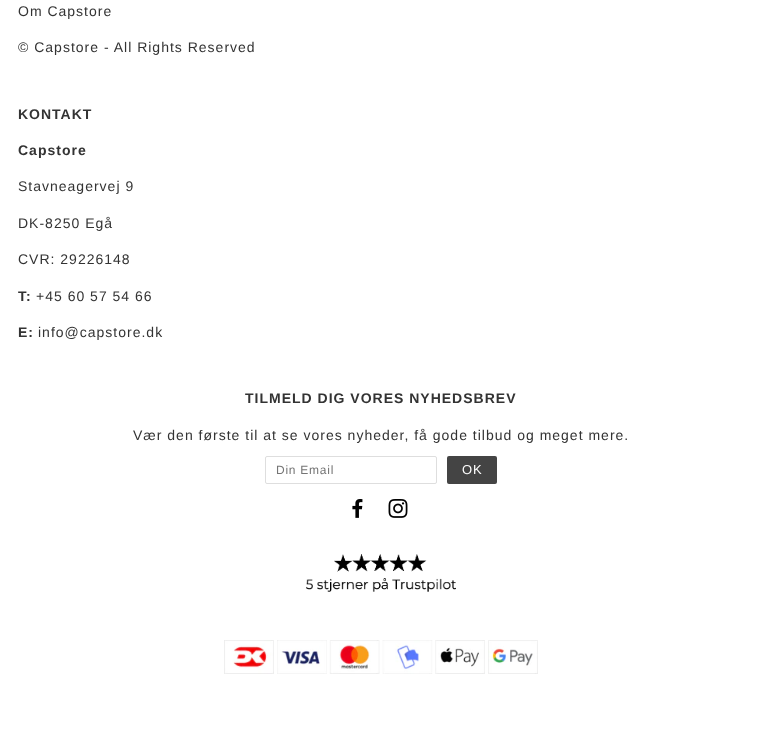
<!DOCTYPE html>
<meta charset="utf-8">
<style>body { margin: 0 } canvas { display: block }</style>
<canvas id="canvas" width="762" height="737"></canvas>
<script type="module">
  const canvas = document.getElementById("canvas");
  const g = canvas.getContext("2d");
  g.miterLimit = 4;
  g.fontKerning = "normal";
  function drawText(s, x, y, [font, color]) {
    g.font = font;
    g.fillStyle = color;
    g.fillText(s, x, y);
  }
  function fillBox(x, y, w, h, color) {
    g.fillStyle = color;
    g.fillRect(x, y, w, h);
  }
  function fillRounded(x, y, w, h, r, color) {
    g.fillStyle = color;
    g.beginPath();
    g.roundRect(x, y, w, h, r);
    g.fill();
  }
  async function drawPicture(src, x, y, w, h) {
    const img = new Image();
    img.src = src;
    await img.decode();
    g.drawImage(img, x, y, w, h);
  }

  const s1 = ["14px Liberation Sans", "#333333"];
  const s2 = ["bold 14px Liberation Sans", "#333333"];
  const s3 = ["12px Liberation Sans", "#757575"];
  const s4 = ["13px Liberation Sans", "#FFFFFF"];

  fillBox(0, 0, 762, 737, "#FFFFFF");
  g.letterSpacing = "1px";
  drawText("Om Capstore", 18, 16, s1);
  drawText("© Capstore - All Rights Reserved", 18, 52, s1);
  drawText("KONTAKT", 18, 119, s2);
  drawText("Capstore", 18, 155, s2);
  drawText("Stavneagervej 9", 18, 191, s1);
  drawText("DK-8250 Egå", 18, 228, s1);
  drawText("CVR: 29226148", 18, 264, s1);
  drawText("T:", 18, 301, s2);
  drawText("+45 60 57 54 66", 36, 301, s1);
  drawText("E:", 18, 337, s2);
  drawText("info@capstore.dk", 38, 337, s1);
  drawText("TILMELD DIG VORES NYHEDSBREV", 245, 403, s2);
  drawText("Vær den første til at se vores nyheder, få gode tilbud og meget mere.", 133, 440, s1);
  g.beginPath();
  g.roundRect(265.5, 456.5, 171, 27, 1.5);
  g.strokeStyle = "#DEDEDE";
  g.stroke();
  g.letterSpacing = "0.75px";
  drawText("Din Email", 276, 474, s3);
  fillRounded(447, 456, 50, 28, 2, "#444444");
  g.letterSpacing = "1px";
  drawText("OK", 462, 474, s4);
  await drawPicture("pic1.png", 352, 499, 11, 19);
  await drawPicture("pic2.png", 388, 499, 20, 19);
  await drawPicture("pic3.png", 306, 554, 150, 38);
  await drawPicture("pic4.png", 224, 640, 314, 34);
</script>
